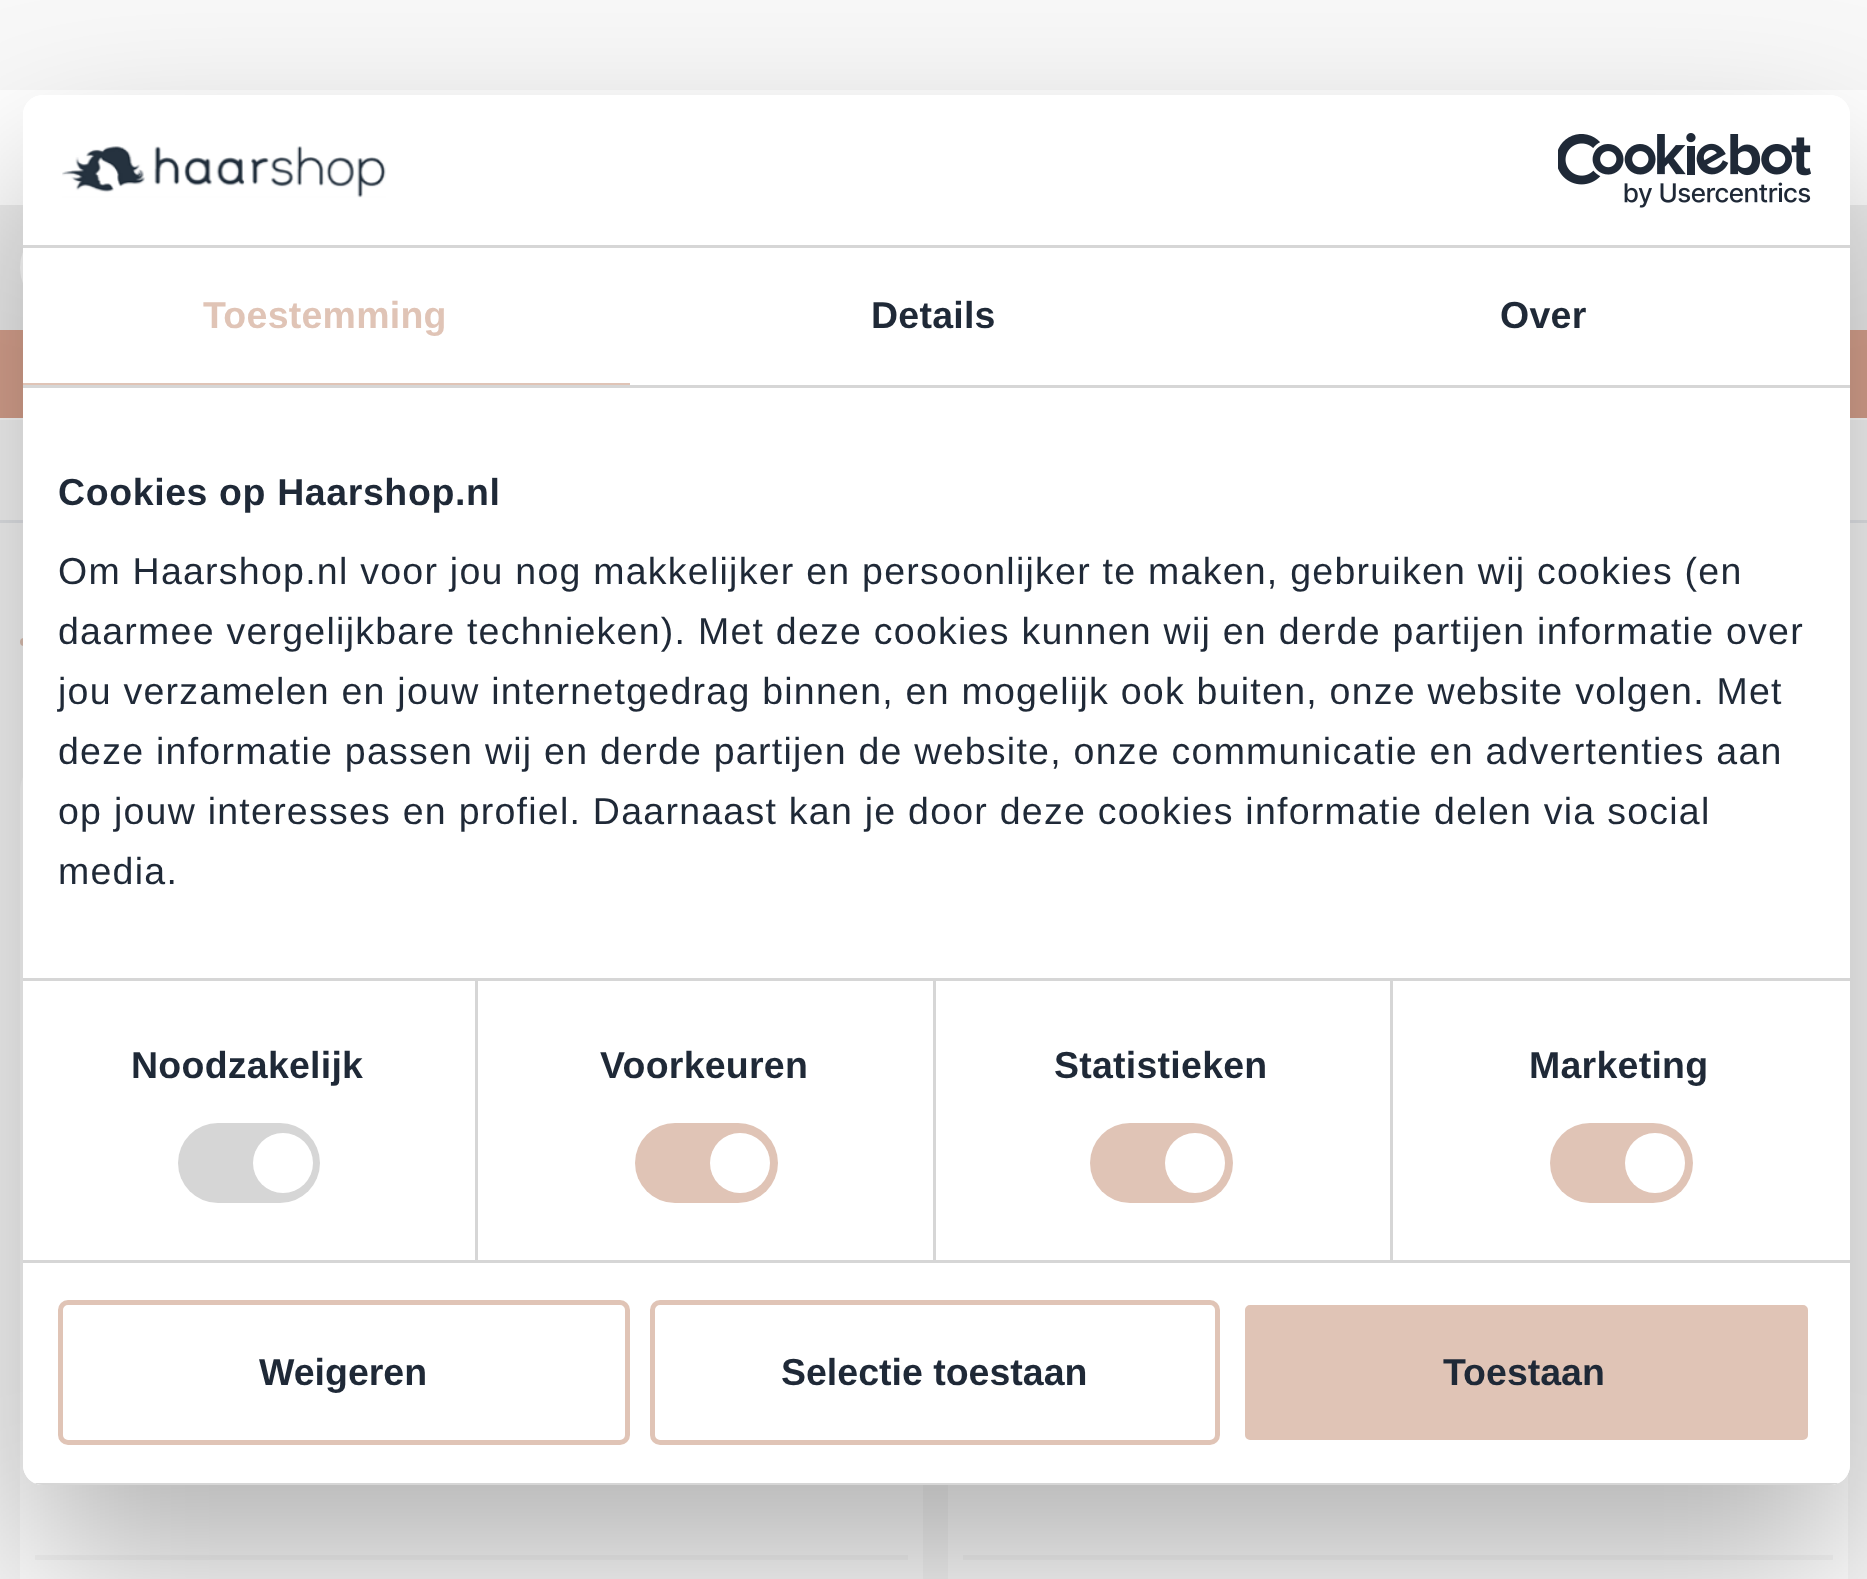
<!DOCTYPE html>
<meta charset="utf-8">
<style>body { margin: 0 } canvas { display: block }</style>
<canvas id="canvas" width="1867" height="1579"></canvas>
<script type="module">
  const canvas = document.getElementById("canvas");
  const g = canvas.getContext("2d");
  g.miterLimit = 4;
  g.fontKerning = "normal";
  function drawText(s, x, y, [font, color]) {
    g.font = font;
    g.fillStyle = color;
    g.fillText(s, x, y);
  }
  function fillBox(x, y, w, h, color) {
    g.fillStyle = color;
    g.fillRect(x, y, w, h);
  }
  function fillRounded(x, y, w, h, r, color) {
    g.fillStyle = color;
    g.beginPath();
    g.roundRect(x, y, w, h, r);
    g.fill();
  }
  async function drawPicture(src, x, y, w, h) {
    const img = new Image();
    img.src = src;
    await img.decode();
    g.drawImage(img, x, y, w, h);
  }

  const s1 = ["bold 37.5px Liberation Sans", "#E0C4B6"];
  const s2 = ["bold 37.5px Liberation Sans", "#1F2937"];
  const s3 = ["37.5px Liberation Sans", "#1F2937"];

  fillBox(0, 0, 1867, 1579, "#FFFFFF");
  fillBox(0, 0, 1867, 90, "#F8F8F8");
  fillBox(0, 205, 1867, 125, "#EEEEEE");
  g.beginPath();
  g.roundRect(21.5, 226.5, 1825, 82, 41);
  g.strokeStyle = "#FFFFFF";
  g.lineWidth = 3;
  g.stroke();
  fillBox(0, 330, 1867, 88, "#D9A38F");
  fillBox(0, 420, 1867, 1159, "#F8F8F8");
  fillBox(0, 520, 1867, 3, "#E5E7EB");
  fillRounded(20, 638, 138, 8, 4, "#E0C4B6");
  fillRounded(20, 760, 903, 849, 30, "#FFFFFF");
  fillBox(35, 1555, 873, 5, "#F8F8F8");
  fillBox(948, 1473, 900, 106, "#FFFFFF");
  fillBox(963, 1555, 870, 5, "#F8F8F8");
  g.save();
  g.beginPath();
  g.moveTo(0, 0);
  g.lineTo(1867, 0);
  g.lineTo(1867, 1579);
  g.lineTo(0, 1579);
  g.closePath();
  g.moveTo(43, 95);
  g.lineTo(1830, 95);
  g.bezierCurveTo(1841, 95, 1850, 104, 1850, 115);
  g.lineTo(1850, 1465);
  g.bezierCurveTo(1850, 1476, 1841, 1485, 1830, 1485);
  g.lineTo(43, 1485);
  g.bezierCurveTo(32, 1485, 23, 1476, 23, 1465);
  g.lineTo(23, 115);
  g.bezierCurveTo(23, 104, 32, 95, 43, 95);
  g.closePath();
  g.clip("evenodd");
  g.fillStyle = "rgba(0, 0, 0, 0.3)";
  g.filter = "blur(85px)";
  g.beginPath();
  g.roundRect(23, 175, 1827, 1390, 20);
  g.fill();
  g.filter = "none";
  g.restore();
  fillRounded(23, 95, 1827, 1390, 20, "#FFFFFF");
  fillBox(23, 245, 1827, 3, "#D6D6D6");
  await drawPicture("pic1.png", 62, 146, 324, 52);
  await drawPicture("pic2.png", 1558, 133, 253, 75);
  fillBox(23, 385, 1827, 3, "#D6D6D6");
  fillBox(23, 383, 607, 2, "#E0C4B6");
  g.letterSpacing = "0.25px";
  drawText("Toestemming", 203, 328, s1);
  drawText("Details", 871, 328, s2);
  drawText("Over", 1500, 328, s2);
  fillBox(475, 980, 3, 280, "#D6D6D6");
  fillBox(933, 980, 3, 280, "#D6D6D6");
  fillBox(1390, 980, 3, 280, "#D6D6D6");
  fillBox(23, 978, 1827, 3, "#D6D6D6");
  g.letterSpacing = "0.6px";
  drawText("Cookies op Haarshop.nl", 58, 505, s2);
  g.letterSpacing = "1.25px";
  drawText("Om Haarshop.nl voor jou nog makkelijker en persoonlijker te maken, gebruiken wij cookies (en", 58, 584, s3);
  drawText("daarmee vergelijkbare technieken). Met deze cookies kunnen wij en derde partijen informatie over", 58, 644, s3);
  drawText("jou verzamelen en jouw internetgedrag binnen, en mogelijk ook buiten, onze website volgen. Met", 58, 704, s3);
  drawText("deze informatie passen wij en derde partijen de website, onze communicatie en advertenties aan", 58, 764, s3);
  drawText("op jouw interesses en profiel. Daarnaast kan je door deze cookies informatie delen via social", 58, 824, s3);
  drawText("media.", 58, 884, s3);
  fillBox(23, 1260, 1827, 3, "#D6D6D6");
  g.letterSpacing = "0.25px";
  drawText("Noodzakelijk", 131, 1078, s2);
  fillRounded(178, 1123, 142, 80, 40, "#D6D6D6");
  g.fillStyle = "#FFFFFF";
  g.beginPath();
  g.arc(283, 1163, 30, 0, Math.PI * 2);
  g.fill();
  drawText("Voorkeuren", 600, 1078, s2);
  fillRounded(635, 1123, 143, 80, 40, "#E0C4B6");
  g.fillStyle = "#FFFFFF";
  g.beginPath();
  g.arc(740, 1163, 30, 0, Math.PI * 2);
  g.fill();
  drawText("Statistieken", 1054, 1078, s2);
  fillRounded(1090, 1123, 143, 80, 40, "#E0C4B6");
  g.fillStyle = "#FFFFFF";
  g.beginPath();
  g.arc(1195, 1163, 30, 0, Math.PI * 2);
  g.fill();
  drawText("Marketing", 1529, 1078, s2);
  fillRounded(1550, 1123, 143, 80, 40, "#E0C4B6");
  g.fillStyle = "#FFFFFF";
  g.beginPath();
  g.arc(1655, 1163, 30, 0, Math.PI * 2);
  g.fill();
  g.save();
  g.beginPath();
  g.roundRect(23, 95, 1827, 1390, 20);
  g.clip();
  fillBox(34, 1483, 1805, 2, "#D6D6D6");
  g.restore();
  g.beginPath();
  g.roundRect(60.5, 1302.5, 567, 140, 7.5);
  g.strokeStyle = "#E0C4B6";
  g.lineWidth = 5;
  g.stroke();
  g.letterSpacing = "0px";
  drawText("Weigeren", 259, 1385, s2);
  g.beginPath();
  g.roundRect(652.5, 1302.5, 565, 140, 7.5);
  g.stroke();
  drawText("Selectie toestaan", 781, 1385, s2);
  g.fillStyle = "#E0C4B6";
  g.beginPath();
  g.roundRect(1242.5, 1302.5, 568, 140, 7.5);
  g.fill();
  g.strokeStyle = "#FFFFFF";
  g.stroke();
  drawText("Toestaan", 1443, 1385, s2);
</script>
